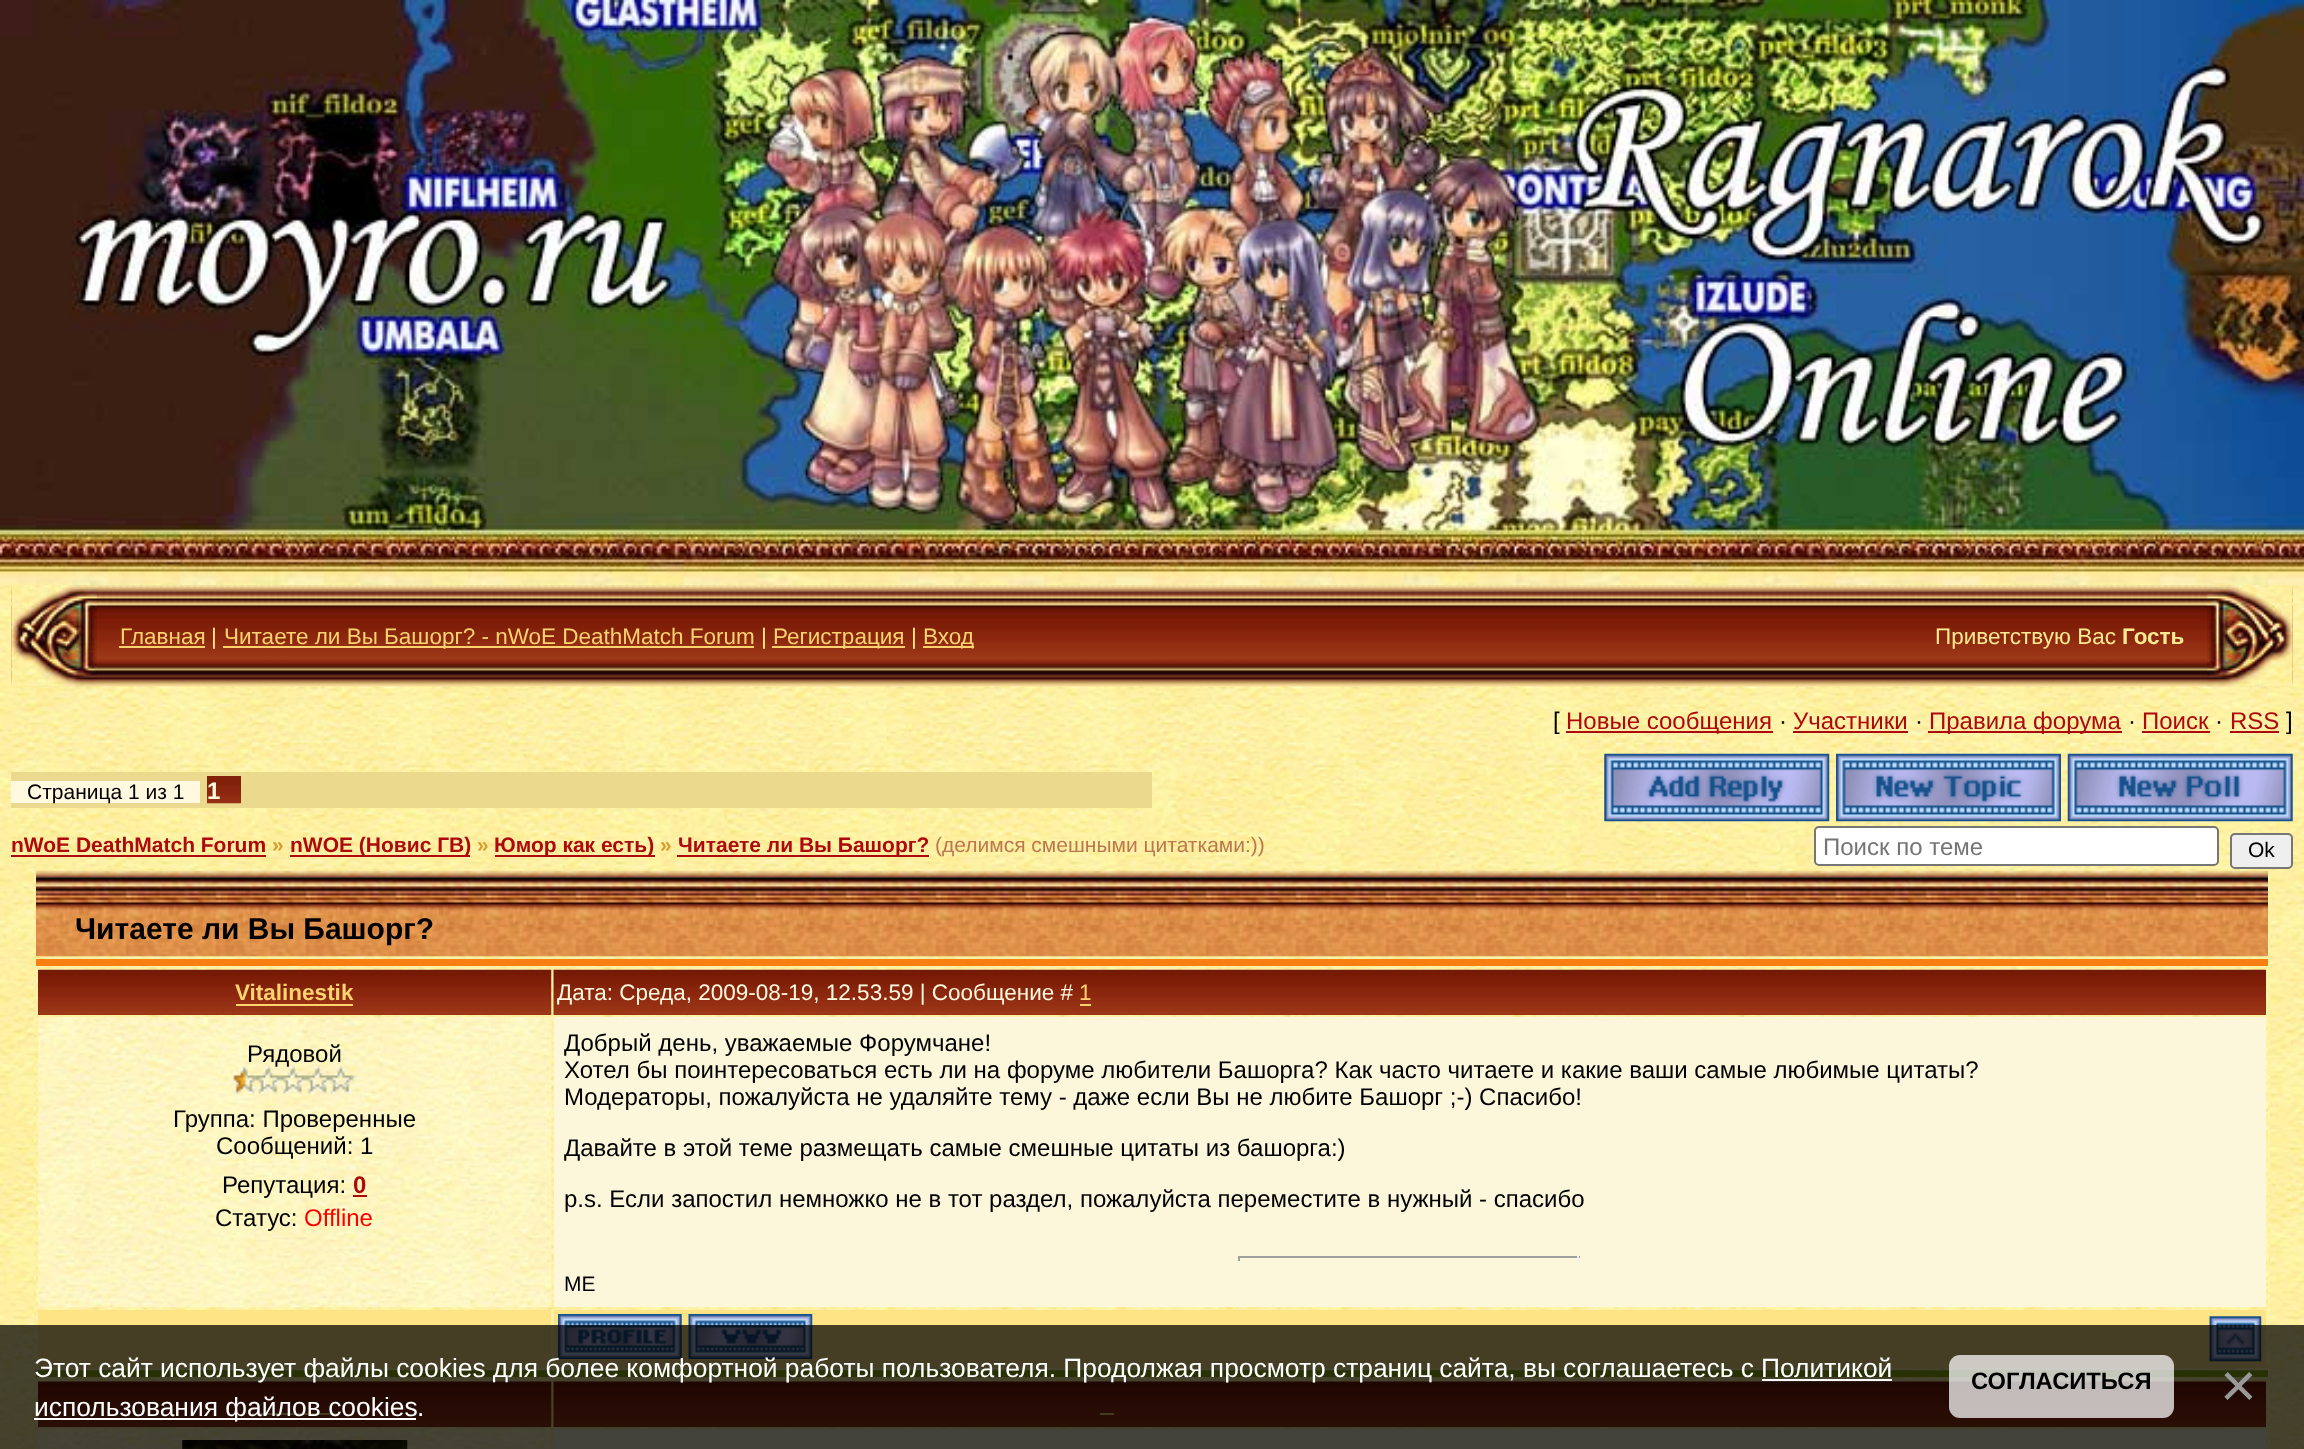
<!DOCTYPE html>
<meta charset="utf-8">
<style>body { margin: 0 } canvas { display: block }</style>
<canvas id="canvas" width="2304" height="1449"></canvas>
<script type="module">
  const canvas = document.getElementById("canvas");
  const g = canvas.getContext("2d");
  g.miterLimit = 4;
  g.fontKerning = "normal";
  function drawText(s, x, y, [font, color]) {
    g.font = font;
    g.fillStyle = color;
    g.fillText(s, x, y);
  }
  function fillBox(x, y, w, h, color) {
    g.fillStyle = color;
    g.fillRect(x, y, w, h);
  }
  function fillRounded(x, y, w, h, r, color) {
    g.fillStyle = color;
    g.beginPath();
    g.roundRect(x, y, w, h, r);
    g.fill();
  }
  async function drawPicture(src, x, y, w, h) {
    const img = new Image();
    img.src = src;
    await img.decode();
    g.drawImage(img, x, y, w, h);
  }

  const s1 = ["22.5px Liberation Sans", "#FED36F"];
  const s2 = ["22.5px Liberation Sans", "#FFE991"];
  const s3 = ["bold 22.5px Liberation Sans", "#FFE991"];
  const s4 = ["24px Liberation Sans", "#000000"];
  const s5 = ["24px Liberation Sans", "#AD090E"];
  const s6 = ["21px Liberation Sans", "#000000"];
  const s7 = ["bold 24px Liberation Sans", "#FFFADF"];
  const s8 = ["bold 21px Liberation Sans", "#AD090E"];
  const s9 = ["bold 21px Liberation Sans", "#D69D30"];
  const s10 = ["21px Liberation Sans", "#BA7751"];
  const s11 = ["24px Liberation Sans", "#757575"];
  const s12 = ["bold 30px Liberation Sans", "#000000"];
  const s13 = ["bold 22.5px Liberation Sans", "#FED36F"];
  const s14 = ["22.5px Liberation Sans", "#FFFADF"];
  const s15 = ["bold 24px Liberation Sans", "#AD090E"];
  const s16 = ["24px Liberation Sans", "#FF0000"];
  const s17 = ["26.4px Liberation Sans", "#FFFFFF"];
  const s18 = ["bold 23.75px Liberation Sans", "#000000"];
  const s19 = ["63px Liberation Sans", "#999999"];

  fillBox(0, 0, 2304, 1449, "#FFFFFF");
  await drawPicture("pic1.png", 0, 585, 2304, 864);
  await drawPicture("pic2.png", 0, 0, 2304, 585);
  await drawPicture("pic3.png", 11, 585, 2282, 102);
  await drawPicture("pic4.png", 11, 585, 86, 102);
  drawText("Главная", 120, 644, s1);
  fillBox(119, 646, 86, 2, "#FED36F");
  drawText("|", 211, 644, s2);
  fillBox(223, 646, 531, 2, "#FED36F");
  drawText("Читаете ли Вы Башорг? - nWoE DeathMatch Forum", 224, 644, s1);
  drawText("|", 761, 644, s2);
  fillBox(772, 646, 133, 2, "#FED36F");
  drawText("Регистрация", 773, 644, s1);
  drawText("|", 911, 644, s2);
  fillBox(923, 646, 51, 2, "#FED36F");
  drawText("Вход", 923, 644, s1);
  drawText("Приветствую Вас", 1935, 644, s2);
  drawText("Гость", 2122, 644, s3);
  await drawPicture("pic5.png", 2207, 585, 86, 102);
  drawText("[", 1553, 729, s4);
  fillBox(1566, 731, 207, 2, "#AD090E");
  drawText("Новые сообщения", 1566, 729, s5);
  drawText("·", 1779, 729, s4);
  drawText("Участники", 1793, 729, s5);
  fillBox(1793, 731, 115, 2, "#AD090E");
  drawText("·", 1915, 729, s4);
  fillBox(1928, 731, 194, 2, "#AD090E");
  drawText("Правила форума", 1929, 729, s5);
  drawText("·", 2128, 729, s4);
  drawText("Поиск", 2142, 729, s5);
  fillBox(2142, 731, 68, 2, "#AD090E");
  drawText("·", 2215, 729, s4);
  drawText("RSS", 2230, 729, s5);
  fillBox(2230, 731, 49, 2, "#AD090E");
  drawText("]", 2286, 729, s4);
  fillBox(11, 772, 1141, 36, "#EBD98E");
  fillBox(11, 781, 189, 22, "#FFFADF");
  drawText("Страница 1 из 1", 27, 799, s6);
  fillBox(207, 776, 34, 27, "#82210A");
  await drawPicture("pic6.png", 207, 786, 34, 18);
  drawText("1", 207, 799, s7);
  await drawPicture("pic7.png", 1604, 753, 226, 69);
  await drawPicture("pic8.png", 1836, 753, 225, 69);
  await drawPicture("pic9.png", 2067, 753, 226, 69);
  drawText("nWoE DeathMatch Forum", 11, 852, s8);
  fillBox(11, 855, 255, 2, "#AD090E");
  drawText("»", 272, 852, s9);
  fillBox(290, 855, 180, 2, "#AD090E");
  drawText("nWOE (Новис ГВ)", 290, 852, s8);
  drawText("»", 477, 852, s9);
  fillBox(495, 855, 160, 2, "#AD090E");
  drawText("Юмор как есть)", 494, 852, s8);
  drawText("»", 660, 852, s9);
  fillBox(677, 855, 252, 2, "#AD090E");
  drawText("Читаете ли Вы Башорг?", 678, 852, s8);
  drawText("(делимся смешными цитатками:))", 935, 852, s10);
  g.fillStyle = "#FFFFFF";
  g.beginPath();
  g.roundRect(1815, 827, 403, 38, 4);
  g.fill();
  g.strokeStyle = "#767676";
  g.lineWidth = 2;
  g.stroke();
  drawText("Поиск по теме", 1823, 855, s11);
  await drawPicture("pic10.png", 33, 868, 2238, 581);
  g.fillStyle = "#EFEFEF";
  g.beginPath();
  g.roundRect(2231, 834, 61, 34, 4);
  g.fill();
  g.stroke();
  drawText("Ok", 2248, 857, s6);
  await drawPicture("pic11.png", 36, 870, 2232, 87);
  drawText("Читаете ли Вы Башорг?", 75, 939, s12);
  fillBox(36, 959, 2232, 7, "#F87F11");
  fillBox(36, 1370, 2232, 7, "#95B412");
  await drawPicture("pic12.png", 36, 967, 2232, 404);
  fillBox(38, 970, 513, 45, "#82210A");
  await drawPicture("pic13.png", 38, 969, 514, 46);
  drawText("Vitalinestik", 235, 1000, s13);
  fillBox(236, 1004, 117, 2, "#FED36F");
  fillBox(554, 970, 1712, 45, "#82210A");
  await drawPicture("pic14.png", 553, 969, 1713, 46);
  drawText("Дата: Среда, 2009-08-19, 12.53.59 | Сообщение #", 557, 1000, s14);
  drawText("1", 1079, 1000, s1);
  fillBox(1080, 1004, 11, 2, "#FED36F");
  await drawPicture("pic15.png", 38, 1017, 514, 291);
  drawText("Рядовой", 247, 1062, s4);
  await drawPicture("pic16.png", 231, 1066, 125, 28);
  drawText("Группа: Проверенные", 173, 1127, s4);
  drawText("Сообщений: 1", 216, 1154, s4);
  drawText("Репутация:", 222, 1193, s4);
  drawText("0", 353, 1193, s15);
  fillBox(353, 1195, 14, 2, "#AD090E");
  drawText("Статус:", 215, 1226, s4);
  drawText("Offline", 304, 1226, s16);
  fillBox(554, 1017, 1712, 290, "#FCF7DB");
  drawText("Добрый день, уважаемые Форумчане!", 564, 1051, s4);
  drawText("Хотел бы поинтересоваться есть ли на форуме любители Башорга? Как часто читаете и какие ваши самые любимые цитаты?", 564, 1078, s4);
  drawText("Модераторы, пожалуйста не удаляйте тему - даже если Вы не любите Башорг ;-) Спасибо!", 564, 1105, s4);
  drawText("Давайте в этой теме размещать самые смешные цитаты из башорга:)", 564, 1156, s4);
  drawText("p.s. Если запостил немножко не в тот раздел, пожалуйста переместите в нужный - спасибо", 564, 1207, s4);
  fillBox(1238, 1256, 342, 2, "#9F9F9F");
  fillBox(1577, 1256, 2, 5, "#EEEEEE");
  fillBox(1238, 1256, 2, 5, "#9F9F9F");
  drawText("ME", 564, 1291, s6);
  fillBox(38, 1310, 513, 58, "#FFE485");
  fillBox(554, 1310, 1712, 58, "#FFE485");
  await drawPicture("pic17.png", 558, 1314, 124, 45);
  await drawPicture("pic18.png", 688, 1314, 125, 45);
  await drawPicture("pic19.png", 2209, 1316, 53, 46);
  await drawPicture("pic20.png", 36, 1379, 2232, 70);
  fillBox(38, 1382, 513, 45, "#82210A");
  await drawPicture("pic21.png", 38, 1381, 514, 46);
  fillBox(252, 1413, 86, 2, "#FED36F");
  fillBox(554, 1382, 1712, 45, "#82210A");
  await drawPicture("pic22.png", 553, 1381, 1713, 46);
  fillBox(1100, 1413, 14, 2, "#FED36F");
  await drawPicture("pic23.png", 38, 1428, 514, 21);
  await drawPicture("pic24.png", 182, 1440, 226, 9);
  fillBox(554, 1429, 1712, 20, "#FCF7DB");
  fillBox(0, 1325, 2304, 124, "rgba(0, 0, 0, 0.73)");
  g.wordSpacing = "-0.1px";
  drawText("Этот сайт использует файлы cookies для более комфортной работы пользователя. Продолжая просмотр страниц сайта, вы соглашаетесь с", 34, 1377, s17);
  g.wordSpacing = "0px";
  drawText("Политикой", 1761, 1377, s17);
  fillBox(1762, 1379, 130, 2, "#FFFFFF");
  fillBox(34, 1418, 382, 2, "#FFFFFF");
  drawText("использования файлов cookies", 34, 1416, s17);
  drawText(".", 417, 1416, s17);
  fillRounded(1949, 1355, 225, 63, 11, "rgba(255, 255, 255, 0.73)");
  drawText("СОГЛАСИТЬСЯ", 1971, 1389, s18);
  drawText("×", 2220, 1407, s19);
</script>
